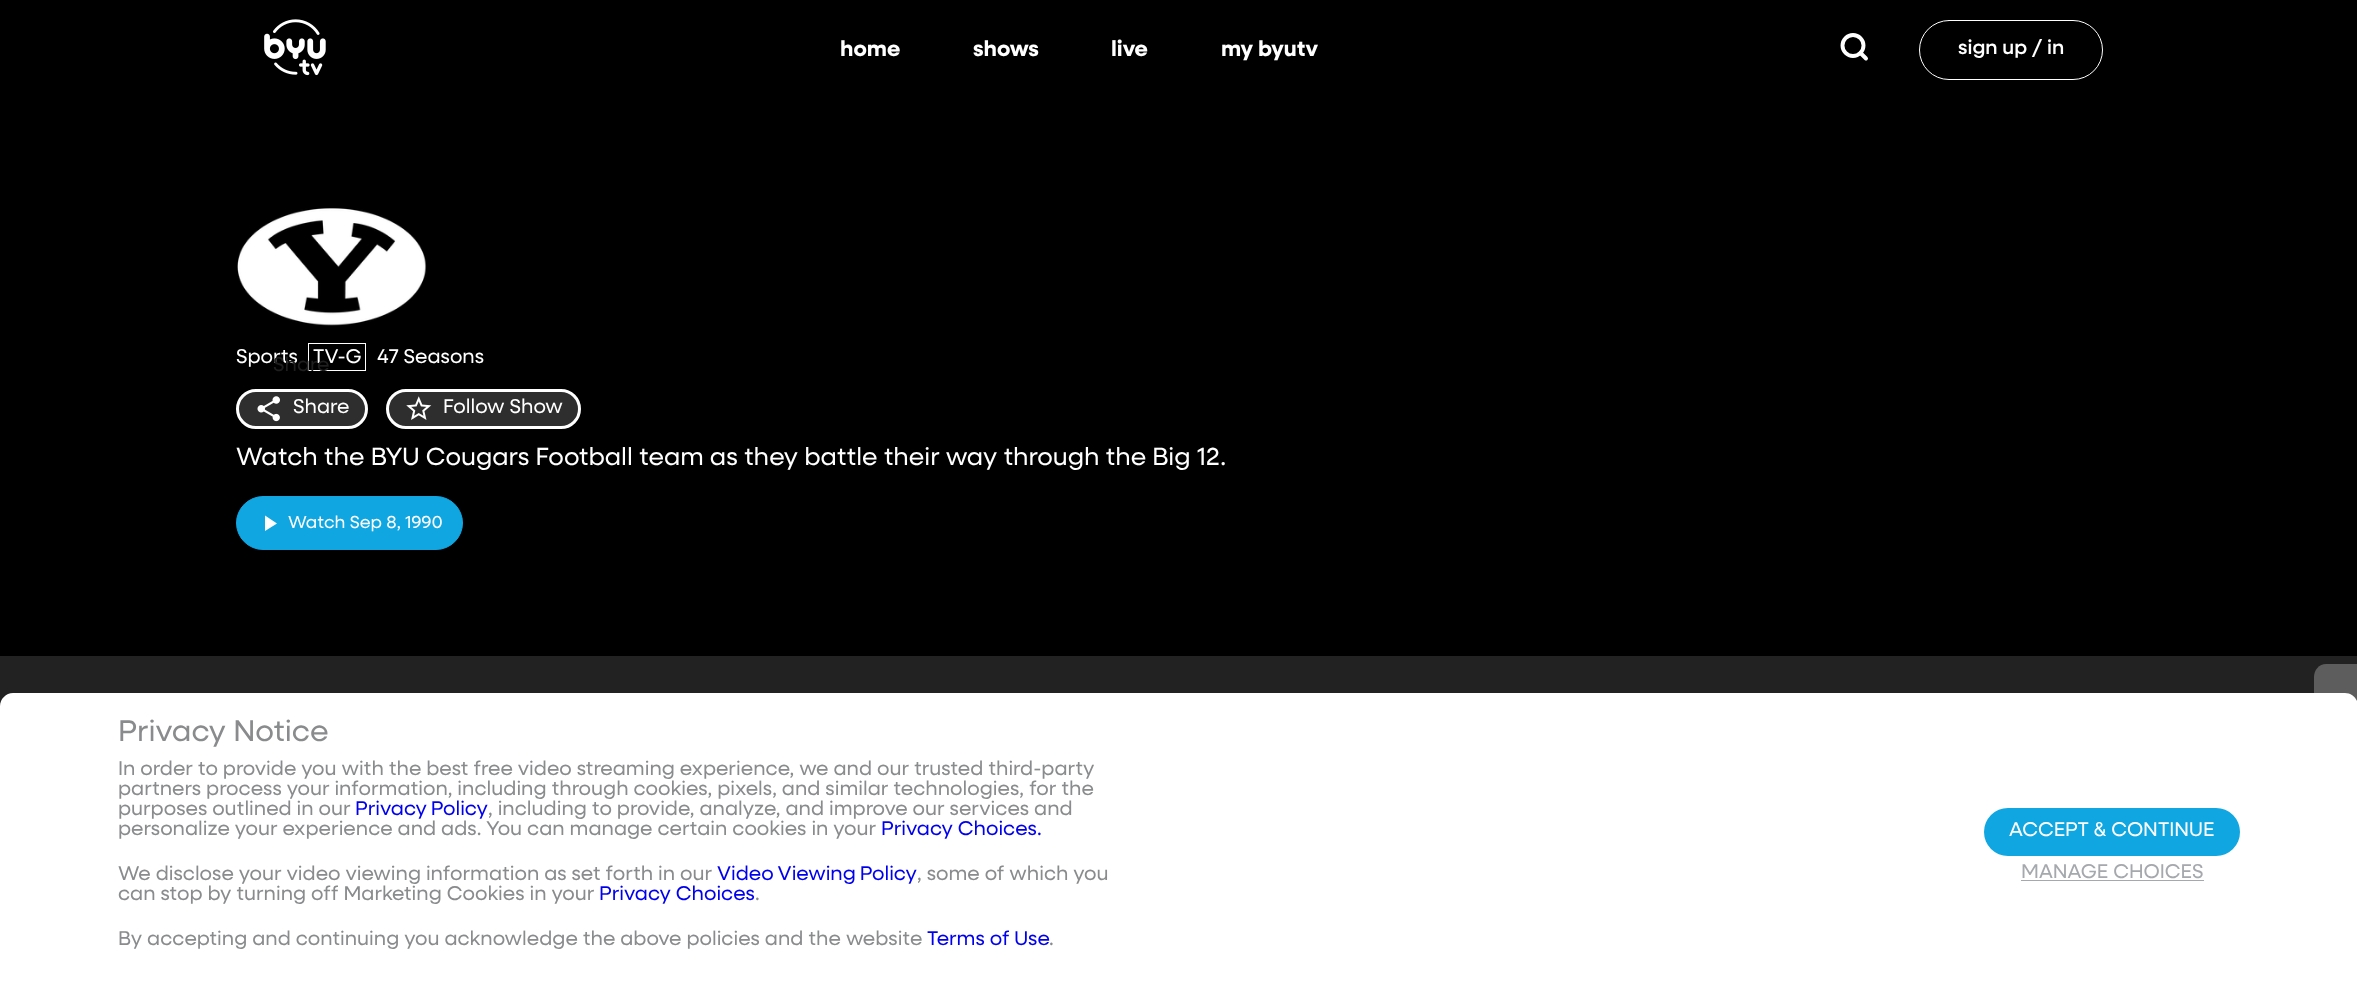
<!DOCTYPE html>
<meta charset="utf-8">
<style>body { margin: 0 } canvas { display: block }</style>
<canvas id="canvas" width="2357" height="999"></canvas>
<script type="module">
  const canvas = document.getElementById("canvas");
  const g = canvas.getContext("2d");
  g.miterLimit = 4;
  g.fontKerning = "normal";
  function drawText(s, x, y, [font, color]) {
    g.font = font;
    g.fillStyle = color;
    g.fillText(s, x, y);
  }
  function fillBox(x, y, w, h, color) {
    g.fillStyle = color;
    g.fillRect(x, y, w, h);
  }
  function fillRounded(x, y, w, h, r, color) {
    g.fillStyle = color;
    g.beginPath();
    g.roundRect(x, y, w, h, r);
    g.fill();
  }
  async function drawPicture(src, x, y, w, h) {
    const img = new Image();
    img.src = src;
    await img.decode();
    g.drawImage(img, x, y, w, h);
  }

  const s1 = ["bold 22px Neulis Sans", "#FFFFFF"];
  const s2 = ["500 20px Neulis Sans", "#FFFFFF"];
  const s3 = ["20px Neulis Sans", "#FFFFFF"];
  const s4 = ["20px Neulis Sans", "#1F1F1F"];
  const s5 = ["24.95px Neulis Sans", "#FFFFFF"];
  const s6 = ["17.5px Neulis Sans", "#FFFFFF"];
  const s7 = ["30px Neulis Sans", "#898B8D"];
  const s8 = ["20px Neulis Sans", "#898B8D"];
  const s9 = ["20px Neulis Sans", "#0000EE"];
  const s10 = ["20px Neulis Sans", "#A5A8AC"];

  fillBox(0, 0, 2357, 999, "#222222");
  fillBox(0, 0, 2357, 656, "#000000");
  await drawPicture("pic1.png", 264, 19, 62, 57);
  drawText("home", 840, 56, s1);
  drawText("shows", 973, 56, s1);
  drawText("live", 1111, 56, s1);
  drawText("my byutv", 1221, 56, s1);
  g.beginPath();
  g.arc(1853, 45.5, 10.5, 0, Math.PI * 2);
  g.strokeStyle = "#FFFFFF";
  g.lineWidth = 3.9;
  g.stroke();
  g.beginPath();
  g.moveTo(1866, 58.5);
  g.lineTo(1860.5, 53);
  g.lineCap = "round";
  g.lineJoin = "round";
  g.stroke();
  g.beginPath();
  g.roundRect(1919.5, 20.5, 183, 59, 29.5);
  g.lineWidth = 1;
  g.lineJoin = "miter";
  g.stroke();
  drawText("sign up / in", 1958, 54, s2);
  await drawPicture("pic2.png", 237, 208, 190, 118);
  drawText("Sports", 236, 363, s3);
  g.strokeRect(308.5, 343.5, 57, 27);
  drawText("TV-G", 313, 363, s3);
  drawText("47 Seasons", 377, 363, s3);
  g.fillStyle = "#2E2E2E";
  g.beginPath();
  g.roundRect(237.5, 390.5, 129, 37, 18.5);
  g.fill();
  g.lineWidth = 3;
  g.stroke();
  drawText("Share", 273, 371, s4);
  await drawPicture("pic3.png", 257, 396, 23, 26);
  drawText("Share", 293, 413, s3);
  g.fillStyle = "#2E2E2E";
  g.beginPath();
  g.roundRect(387.5, 390.5, 192, 37, 18.5);
  g.fill();
  g.stroke();
  await drawPicture("pic4.png", 406, 396, 26, 24);
  drawText("Follow Show", 443, 413, s3);
  drawText("Watch the BYU Cougars Football team as they battle their way through the Big 12.", 236, 465, s5);
  g.fillStyle = "#0FA6E2";
  g.beginPath();
  g.roundRect(236.5, 496.5, 226, 53, 26.5);
  g.fill();
  g.strokeStyle = "#0FA6E2";
  g.lineWidth = 1;
  g.stroke();
  g.fillStyle = "#FFFFFF";
  g.beginPath();
  g.moveTo(265, 515.5);
  g.lineTo(265, 531);
  g.lineTo(277, 523.5);
  g.closePath();
  g.fill();
  drawText("Watch Sep 8, 1990", 288, 528, s6);
  g.fillStyle = "#5D5D5D";
  g.beginPath();
  g.moveTo(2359, 850);
  g.lineTo(2326, 850);
  g.bezierCurveTo(2319, 850, 2314, 844, 2314, 837);
  g.lineTo(2314, 677);
  g.bezierCurveTo(2314, 670, 2319, 664, 2326, 664);
  g.lineTo(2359, 664);
  g.closePath();
  g.fill();
  g.fillStyle = "#FFFFFF";
  g.beginPath();
  g.moveTo(13, 693);
  g.lineTo(2345, 693);
  g.bezierCurveTo(2352, 693, 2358, 699, 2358, 706);
  g.lineTo(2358, 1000);
  g.lineTo(0, 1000);
  g.lineTo(0, 706);
  g.bezierCurveTo(0, 699, 6, 693, 13, 693);
  g.closePath();
  g.fill();
  drawText("Privacy Notice", 118, 741, s7);
  drawText("In order to provide you with the best free video streaming experience, we and our trusted third-party", 118, 775, s8);
  drawText("partners process your information, including through cookies, pixels, and similar technologies, for the", 118, 795, s8);
  drawText("purposes outlined in our", 118, 815, s8);
  g.wordSpacing = "-1px";
  drawText("Privacy Policy", 355, 815, s9);
  g.wordSpacing = "0px";
  drawText(", including to provide, analyze, and improve our services and", 488, 815, s8);
  drawText("personalize your experience and ads. You can manage certain cookies in your", 118, 835, s8);
  drawText("Privacy Choices.", 881, 835, s9);
  drawText("We disclose your video viewing information as set forth in our", 118, 880, s8);
  g.wordSpacing = "-1px";
  drawText("Video Viewing Policy", 717, 880, s9);
  g.wordSpacing = "0px";
  drawText(", some of which you", 917, 880, s8);
  drawText("can stop by turning off Marketing Cookies in your", 118, 900, s8);
  drawText("Privacy Choices", 599, 900, s9);
  drawText(".", 755, 900, s8);
  drawText("By accepting and continuing you acknowledge the above policies and the website", 118, 945, s8);
  drawText("Terms of Use", 927, 945, s9);
  drawText(".", 1049, 945, s8);
  fillRounded(1984, 808, 256, 48, 24, "#0FA6E2");
  drawText("ACCEPT & CONTINUE", 2009, 836, s3);
  drawText("MANAGE CHOICES", 2021, 878, s10);
  fillBox(2021, 880, 183, 1, "#A5A8AC");
</script>
